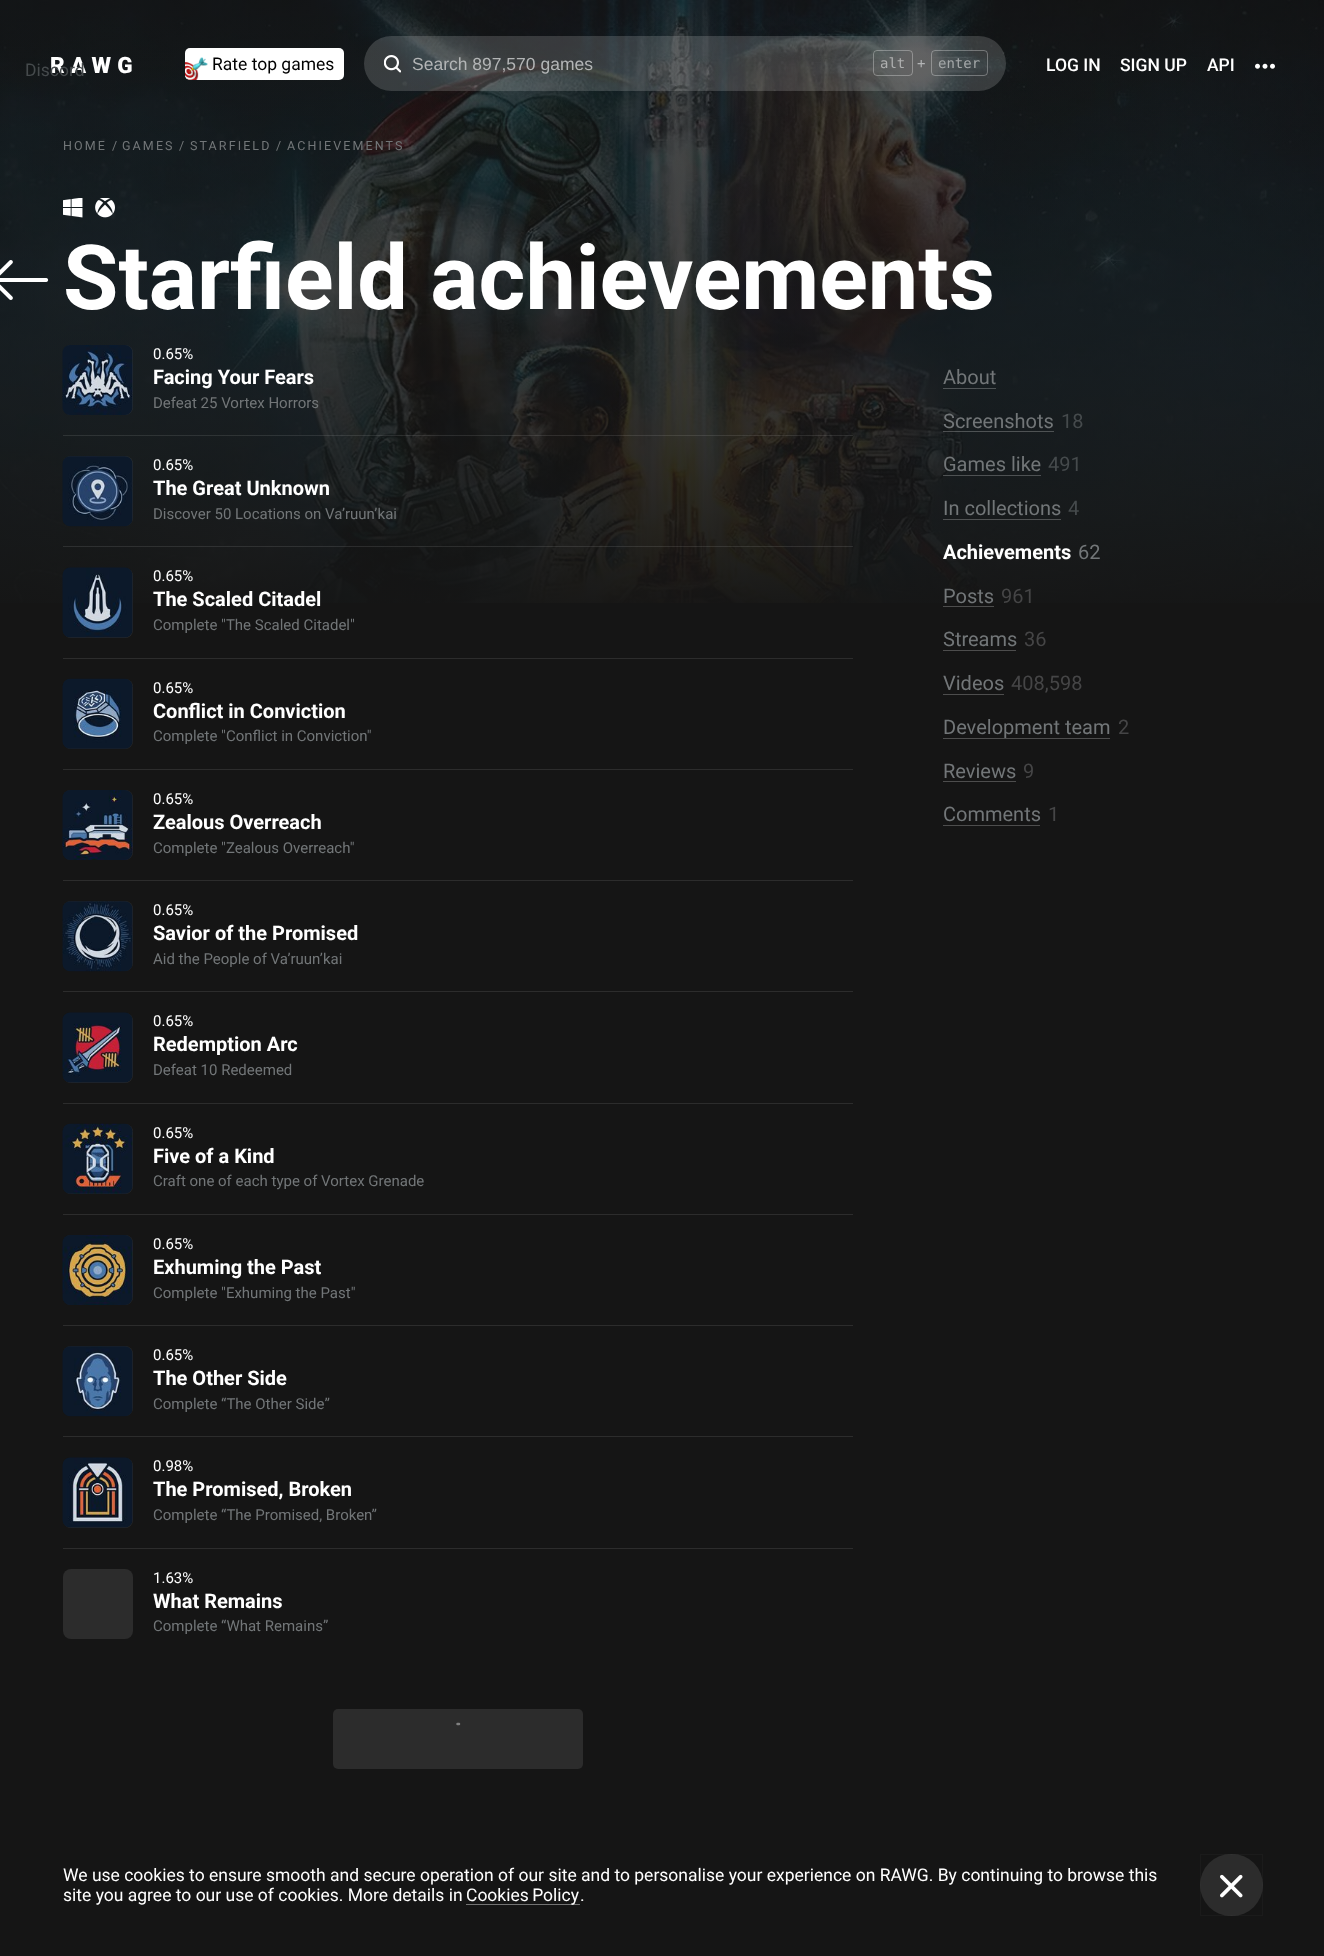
<!DOCTYPE html>
<meta charset="utf-8">
<style>body { margin: 0 } canvas { display: block }</style>
<canvas id="canvas" width="1324" height="1956"></canvas>
<script type="module">
  const canvas = document.getElementById("canvas");
  const g = canvas.getContext("2d");
  g.miterLimit = 4;
  g.fontKerning = "normal";
  function drawText(s, x, y, [font, color]) {
    g.font = font;
    g.fillStyle = color;
    g.fillText(s, x, y);
  }
  function fillBox(x, y, w, h, color) {
    g.fillStyle = color;
    g.fillRect(x, y, w, h);
  }
  function fillRounded(x, y, w, h, r, color) {
    g.fillStyle = color;
    g.beginPath();
    g.roundRect(x, y, w, h, r);
    g.fill();
  }
  async function drawPicture(src, x, y, w, h) {
    const img = new Image();
    img.src = src;
    await img.decode();
    g.drawImage(img, x, y, w, h);
  }

  const s1 = ["900 22.5px Roboto", "#FFFFFF"];
  const s2 = ["17.5px Roboto", "#000000"];
  const s3 = ["17.5px Liberation Sans", "#B3B5B6"];
  const s4 = ["14px DejaVu Sans Mono", "#AFB0B0"];
  const s5 = ["14px DejaVu Sans Mono", "#B3B5B6"];
  const s6 = ["14px DejaVu Sans Mono", "#A4A8A9"];
  const s7 = ["17.5px Roboto", "#454A4C"];
  const s8 = ["500 17.5px Roboto", "#FFFFFF"];
  const s9 = ["12.5px Roboto", "#727678"];
  const s10 = ["bold 90px Roboto", "#FFFFFF"];
  const s11 = ["15px Roboto", "#FFFFFF"];
  const s12 = ["bold 20px Roboto", "#FFFFFF"];
  const s13 = ["15px Roboto", "#727678"];
  const s14 = ["20px Roboto", "#727678"];
  const s15 = ["20px Roboto", "#454A4C"];
  const s16 = ["20px Roboto", "#454546"];
  const s17 = ["17.5px Roboto", "#FFFFFF"];

  fillBox(0, 0, 1324, 1956, "#151515");
  await drawPicture("pic1.png", 0, 0, 1324, 603);
  g.letterSpacing = "6px";
  drawText("RAWG", 50, 73, s1);
  fillRounded(185, 48, 159, 32, 5, "#FFFFFF");
  await drawPicture("pic2.png", 185, 57, 23, 23);
  g.letterSpacing = "0px";
  drawText("Rate top games", 212, 70, s2);
  fillRounded(364, 36, 642, 55, 27.5, "rgba(255, 255, 255, 0.16)");
  await drawPicture("pic3.png", 384, 55, 17, 18);
  drawText("Search 897,570 games", 412, 70, s3);
  g.beginPath();
  g.roundRect(873.5, 50.5, 39, 25, 3.5);
  g.strokeStyle = "rgba(255, 255, 255, 0.3)";
  g.stroke();
  drawText("alt", 880, 68, s4);
  drawText("+", 917, 68, s5);
  g.beginPath();
  g.roundRect(931.5, 50.5, 56, 25, 3.5);
  g.stroke();
  drawText("enter", 938, 68, s6);
  drawText("Discord", 25, 76, s7);
  await drawPicture("pic4.png", 1255, 63, 20, 6);
  drawText("LOG IN", 1046, 71, s8);
  drawText("SIGN UP", 1120, 71, s8);
  drawText("API", 1207, 71, s8);
  g.letterSpacing = "2.1px";
  drawText("HOME", 63, 150, s9);
  g.letterSpacing = "0px";
  drawText("/", 112, 150, s9);
  g.letterSpacing = "2.1px";
  drawText("GAMES", 122, 150, s9);
  g.letterSpacing = "0px";
  drawText("/", 179, 150, s9);
  g.letterSpacing = "2.1px";
  drawText("STARFIELD", 190, 150, s9);
  g.letterSpacing = "0px";
  drawText("/", 276, 150, s9);
  g.letterSpacing = "2.1px";
  drawText("ACHIEVEMENTS", 287, 150, s9);
  await drawPicture("pic5.png", 63, 198, 20, 20);
  await drawPicture("pic6.png", 95, 198, 20, 20);
  await drawPicture("pic7.png", 0, 260, 49, 40);
  g.letterSpacing = "0px";
  drawText("Starfield achievements", 63, 309, s10);
  fillBox(63, 435, 790, 1, "rgba(255, 255, 255, 0.1)");
  fillRounded(63, 345, 70, 70, 8, "rgba(255, 255, 255, 0.1)");
  await drawPicture("pic8.png", 62, 345, 71, 70);
  drawText("0.65%", 153, 359, s11);
  drawText("Facing Your Fears", 153, 384, s12);
  drawText("Defeat 25 Vortex Horrors", 153, 408, s13);
  fillBox(63, 546, 790, 1, "rgba(255, 255, 255, 0.1)");
  fillRounded(63, 456, 70, 70, 8, "rgba(255, 255, 255, 0.1)");
  await drawPicture("pic9.png", 62, 456, 71, 71);
  drawText("0.65%", 153, 470, s11);
  drawText("The Great Unknown", 153, 495, s12);
  drawText("Discover 50 Locations on Va’ruun’kai", 153, 519, s13);
  fillBox(63, 658, 790, 1, "#2C2C2C");
  fillRounded(63, 568, 70, 70, 8, "rgba(255, 255, 255, 0.1)");
  await drawPicture("pic10.png", 62, 567, 71, 71);
  drawText("0.65%", 153, 581, s11);
  drawText("The Scaled Citadel", 153, 606, s12);
  drawText("Complete \"The Scaled Citadel\"", 153, 630, s13);
  fillBox(63, 769, 790, 1, "#2C2C2C");
  fillRounded(63, 679, 70, 70, 8, "#2C2C2C");
  await drawPicture("pic11.png", 62, 678, 71, 71);
  drawText("0.65%", 153, 693, s11);
  drawText("Conflict in Conviction", 153, 718, s12);
  drawText("Complete \"Conflict in Conviction\"", 153, 741, s13);
  fillBox(63, 880, 790, 1, "#2C2C2C");
  fillRounded(63, 790, 70, 70, 8, "#2C2C2C");
  await drawPicture("pic12.png", 62, 790, 71, 70);
  drawText("0.65%", 153, 804, s11);
  drawText("Zealous Overreach", 153, 829, s12);
  drawText("Complete \"Zealous Overreach\"", 153, 853, s13);
  fillBox(63, 991, 790, 1, "#2C2C2C");
  fillRounded(63, 901, 70, 70, 8, "#2C2C2C");
  await drawPicture("pic13.png", 62, 901, 71, 71);
  drawText("0.65%", 153, 915, s11);
  drawText("Savior of the Promised", 153, 940, s12);
  drawText("Aid the People of Va’ruun’kai", 153, 964, s13);
  fillBox(63, 1103, 790, 1, "#2C2C2C");
  fillRounded(63, 1013, 70, 70, 8, "#2C2C2C");
  await drawPicture("pic14.png", 62, 1012, 71, 71);
  drawText("0.65%", 153, 1026, s11);
  drawText("Redemption Arc", 153, 1051, s12);
  drawText("Defeat 10 Redeemed", 153, 1075, s13);
  fillBox(63, 1214, 790, 1, "#2C2C2C");
  fillRounded(63, 1124, 70, 70, 8, "#2C2C2C");
  await drawPicture("pic15.png", 62, 1123, 71, 71);
  drawText("0.65%", 153, 1138, s11);
  drawText("Five of a Kind", 153, 1163, s12);
  drawText("Craft one of each type of Vortex Grenade", 153, 1186, s13);
  fillBox(63, 1325, 790, 1, "#2C2C2C");
  fillRounded(63, 1235, 70, 70, 8, "#2C2C2C");
  await drawPicture("pic16.png", 62, 1235, 71, 70);
  drawText("0.65%", 153, 1249, s11);
  drawText("Exhuming the Past", 153, 1274, s12);
  drawText("Complete \"Exhuming the Past\"", 153, 1298, s13);
  fillBox(63, 1436, 790, 1, "#2C2C2C");
  fillRounded(63, 1346, 70, 70, 8, "#2C2C2C");
  await drawPicture("pic17.png", 62, 1346, 71, 71);
  drawText("0.65%", 153, 1360, s11);
  drawText("The Other Side", 153, 1385, s12);
  drawText("Complete “The Other Side”", 153, 1409, s13);
  fillBox(63, 1548, 790, 1, "#2C2C2C");
  fillRounded(63, 1458, 70, 70, 8, "#2C2C2C");
  await drawPicture("pic18.png", 62, 1457, 71, 71);
  drawText("0.98%", 153, 1471, s11);
  drawText("The Promised, Broken", 153, 1496, s12);
  drawText("Complete “The Promised, Broken”", 153, 1520, s13);
  fillRounded(63, 1569, 70, 70, 8, "#2C2C2C");
  drawText("1.63%", 153, 1583, s11);
  drawText("What Remains", 153, 1608, s12);
  drawText("Complete “What Remains”", 153, 1631, s13);
  fillRounded(333, 1709, 250, 60, 5, "#2C2C2C");
  g.beginPath();
  g.moveTo(457.5, 1724);
  g.lineTo(459, 1724);
  g.strokeStyle = "#808080";
  g.lineWidth = 2.5;
  g.lineCap = "round";
  g.stroke();
  fillBox(943, 388, 53, 1, "rgba(255, 255, 255, 0.24)");
  drawText("About", 943, 384, s14);
  fillBox(943, 431, 111, 1, "rgba(255, 255, 255, 0.24)");
  drawText("Screenshots", 943, 428, s14);
  drawText("18", 1061, 428, s15);
  fillBox(943, 475, 98, 1, "rgba(255, 255, 255, 0.24)");
  drawText("Games like", 943, 471, s14);
  drawText("491", 1048, 471, s15);
  fillBox(943, 519, 118, 1, "#4F5152");
  drawText("In collections", 943, 515, s14);
  drawText("4", 1068, 515, s15);
  drawText("Achievements", 943, 559, s12);
  drawText("62", 1078, 559, s14);
  fillBox(943, 606, 51, 1, "#4D4D4D");
  drawText("Posts", 943, 603, s14);
  drawText("961", 1001, 603, s16);
  fillBox(943, 650, 73, 1, "#4D4D4D");
  drawText("Streams", 943, 646, s14);
  drawText("36", 1024, 646, s16);
  fillBox(943, 694, 61, 1, "#4D4D4D");
  drawText("Videos", 943, 690, s14);
  drawText("408,598", 1011, 690, s16);
  fillBox(943, 738, 167, 1, "#4D4D4D");
  drawText("Development team", 943, 734, s14);
  drawText("2", 1118, 734, s16);
  fillBox(943, 781, 73, 1, "#4D4D4D");
  drawText("Reviews", 943, 778, s14);
  drawText("9", 1023, 778, s16);
  fillBox(943, 825, 97, 1, "#4D4D4D");
  drawText("Comments", 943, 821, s14);
  drawText("1", 1048, 821, s16);
  drawText("We use cookies to ensure smooth and secure operation of our site and to personalise your experience on RAWG. By continuing to browse this", 63, 1881, s17);
  drawText("site you agree to our use of cookies. More details in", 63, 1901, s17);
  fillBox(466, 1904, 114, 1, "#737373");
  g.wordSpacing = "-1px";
  drawText("Cookies Policy", 466, 1901, s17);
  g.wordSpacing = "0px";
  drawText(".", 580, 1901, s17);
  fillRounded(1200, 1854, 63, 62, 31, "#2C2C2C");
  g.strokeStyle = "rgba(151, 151, 151, 0.05)";
  g.lineWidth = 1;
  g.strokeRect(1200.5, 1854.5, 62, 61);
  await drawPicture("pic19.png", 1220, 1874, 23, 24);
</script>
